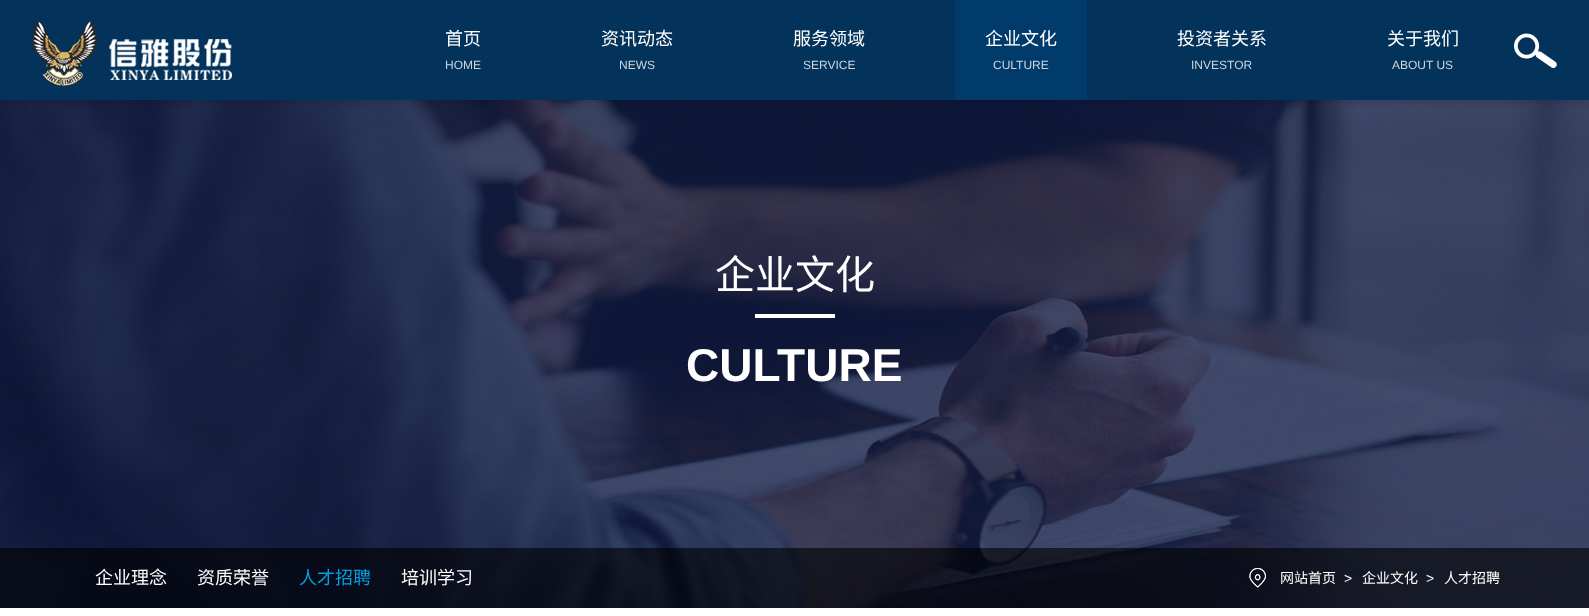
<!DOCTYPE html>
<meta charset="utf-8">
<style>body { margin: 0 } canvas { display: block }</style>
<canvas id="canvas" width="1589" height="616"></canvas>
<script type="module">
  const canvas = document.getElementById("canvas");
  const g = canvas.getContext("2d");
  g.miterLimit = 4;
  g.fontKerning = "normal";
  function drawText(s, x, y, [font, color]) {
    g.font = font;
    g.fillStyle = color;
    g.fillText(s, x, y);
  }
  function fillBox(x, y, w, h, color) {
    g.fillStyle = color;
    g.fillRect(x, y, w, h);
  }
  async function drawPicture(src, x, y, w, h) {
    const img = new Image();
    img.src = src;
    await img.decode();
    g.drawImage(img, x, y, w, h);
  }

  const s1 = ["18px Noto Sans CJK SC", "#FFFFFF"];
  const s2 = ["12px Liberation Sans", "#CDD6DE"];
  const s3 = ["40px Noto Sans CJK SC", "#FFFFFF"];
  const s4 = ["bold 46px Liberation Sans", "#FFFFFF"];
  const s5 = ["18px Noto Sans CJK SC", "#00A0E3"];
  const s6 = ["14px Noto Sans CJK SC", "#FFFFFF"];
  const s7 = ["14px Liberation Sans", "#FFFFFF"];

  fillBox(0, 0, 1589, 616, "#FFFFFF");
  await drawPicture("pic3.png", 0, 100, 1589, 508);
  g.fillStyle = "rgba(0, 0, 0, 0.15)";
  g.filter = "blur(3px)";
  g.beginPath();
  g.rect(0, 2, 1589, 100);
  g.fill();
  g.filter = "none";
  fillBox(0, 0, 1589, 100, "#03325B");
  await drawPicture("pic1.png", 31, 20, 201, 67);
  drawText("首页", 445, 45, s1);
  drawText("HOME", 445, 69, s2);
  drawText("资讯动态", 601, 45, s1);
  drawText("NEWS", 619, 69, s2);
  drawText("服务领域", 793, 45, s1);
  drawText("SERVICE", 803, 69, s2);
  fillBox(955, 0, 132, 100, "#013B6C");
  drawText("企业文化", 985, 45, s1);
  drawText("CULTURE", 993, 69, s2);
  drawText("投资者关系", 1177, 45, s1);
  drawText("INVESTOR", 1191, 69, s2);
  drawText("关于我们", 1387, 45, s1);
  drawText("ABOUT US", 1392, 69, s2);
  await drawPicture("pic2.png", 1514, 33, 43, 35);
  drawText("企业文化", 715, 289, s3);
  fillBox(755, 314, 80, 4, "#FFFFFF");
  drawText("CULTURE", 686, 381, s4);
  fillBox(0, 548, 1589, 60, "rgba(0, 0, 0, 0.6)");
  drawText("企业理念", 95, 584, s1);
  drawText("资质荣誉", 197, 584, s1);
  drawText("人才招聘", 299, 584, s5);
  drawText("培训学习", 401, 584, s1);
  await drawPicture("pic4.png", 1249, 568, 17, 20);
  drawText("网站首页", 1280, 583, s6);
  drawText(">", 1344, 583, s7);
  drawText("企业文化", 1362, 583, s6);
  drawText(">", 1426, 583, s7);
  drawText("人才招聘", 1444, 583, s6);
</script>
